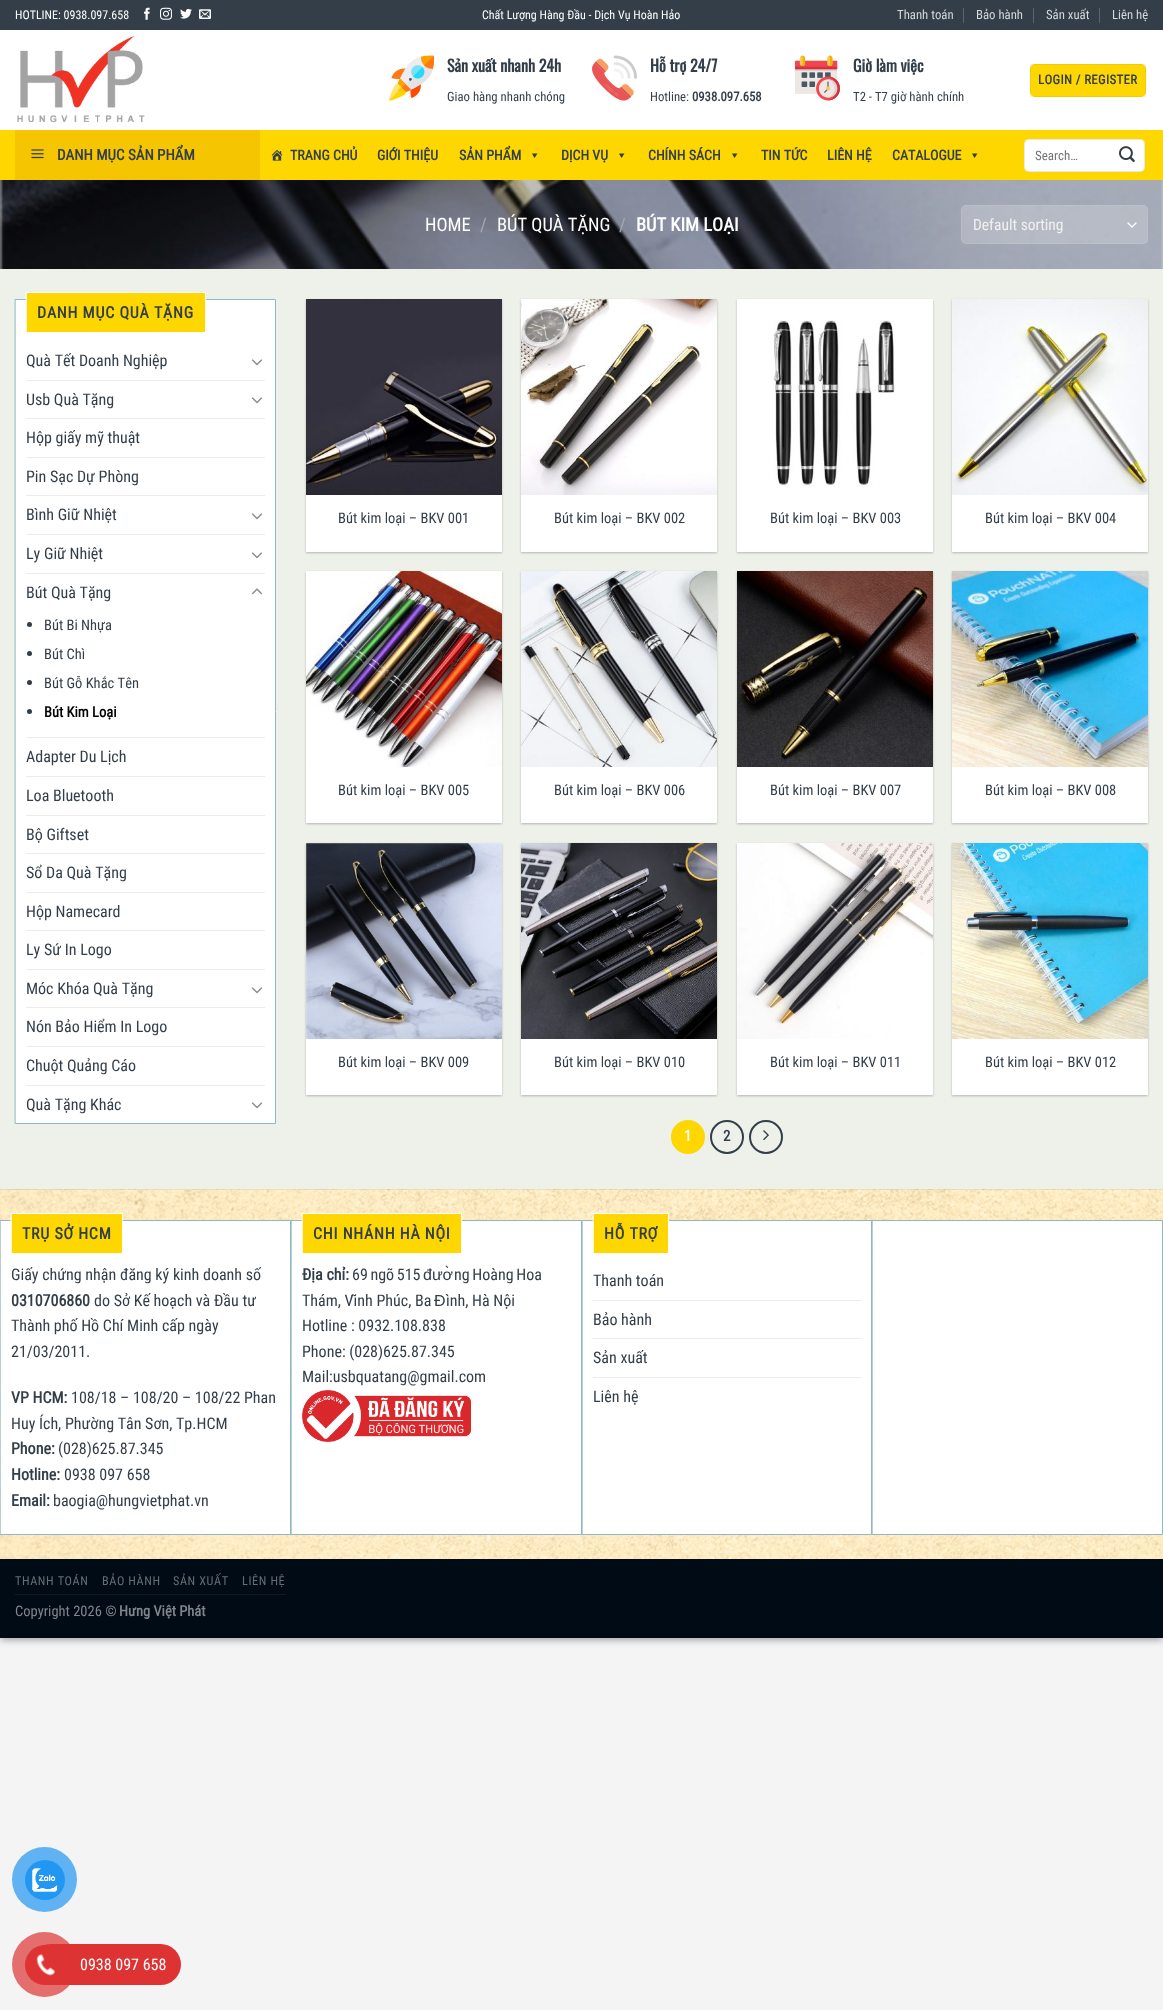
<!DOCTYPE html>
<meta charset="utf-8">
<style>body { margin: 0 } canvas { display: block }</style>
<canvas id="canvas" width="1163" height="2010"></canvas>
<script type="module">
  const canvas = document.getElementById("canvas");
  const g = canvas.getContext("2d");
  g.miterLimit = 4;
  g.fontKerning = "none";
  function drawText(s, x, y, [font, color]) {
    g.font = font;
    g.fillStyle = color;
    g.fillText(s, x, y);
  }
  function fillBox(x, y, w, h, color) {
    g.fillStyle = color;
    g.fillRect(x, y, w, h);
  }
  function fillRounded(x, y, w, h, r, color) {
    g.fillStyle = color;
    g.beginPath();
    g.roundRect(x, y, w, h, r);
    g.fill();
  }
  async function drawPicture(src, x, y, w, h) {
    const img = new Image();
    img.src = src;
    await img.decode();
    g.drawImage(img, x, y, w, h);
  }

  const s1 = ["12px Roboto Condensed", "#FFFFFF"];
  const s2 = ["12.75px Roboto Condensed", "#D6D8DA"];
  const s3 = ["bold 16px Oswald", "#333E48"];
  const s4 = ["12.75px Roboto Condensed", "#333E48"];
  const s5 = ["bold 12.75px Roboto Condensed", "#333E48"];
  const s6 = ["bold 15px Roboto Condensed", "#333E48"];
  const s7 = ["bold 14px Roboto Condensed", "#333E48"];
  const s8 = ["13px Roboto Condensed", "#757575"];
  const s9 = ["18.5px Roboto Condensed", "#FFFFFF"];
  const s10 = ["18.5px Roboto Condensed", "#A6A8B2"];
  const s11 = ["bold 18.5px Roboto Condensed", "#FFFFFF"];
  const s12 = ["15.5px Roboto Condensed", "#F1F1F1"];
  const s13 = ["bold 16px Roboto Condensed", "#333E48"];
  const s14 = ["16px Roboto Condensed", "#333E48"];
  const s15 = ["14.5px Roboto Condensed", "#333E48"];
  const s16 = ["bold 14.5px Roboto Condensed", "#000000"];
  const s17 = ["bold 15px Roboto Condensed", "#FFFFFF"];
  const s18 = ["16px Liberation Sans", "#333E48"];
  const s19 = ["12.25px Roboto Condensed", "#666D73"];
  const s20 = ["14.5px Roboto Condensed", "#80858B"];
  const s21 = ["bold 14.5px Roboto Condensed", "#80858B"];
  const s22 = ["16px Roboto Condensed", "#FFFFFF"];

  fillBox(0, 0, 1163, 2010, "#F4F4F4");
  g.fillStyle = "rgba(0, 0, 0, 0.23)";
  g.filter = "blur(3px)";
  g.beginPath();
  g.rect(0, 3, 1163, 1638);
  g.fill();
  g.filter = "none";
  g.fillStyle = "rgba(0, 0, 0, 0.16)";
  g.filter = "blur(3px)";
  g.beginPath();
  g.rect(4, 7, 1155, 1630);
  g.fill();
  g.filter = "none";
  fillBox(0, 180, 1163, 1009, "#EEF1EA");
  fillBox(0, 30, 1163, 100, "#FFFFFF");
  fillBox(0, 0, 1163, 30, "#333E48");
  drawText("HOTLINE: 0938.097.658", 15, 19, s1);
  await drawPicture("pic1.png", 144, 7, 6, 13);
  await drawPicture("pic2.png", 160, 7, 12, 13);
  await drawPicture("pic3.png", 180, 8, 12, 11);
  await drawPicture("pic4.png", 199, 9, 12, 10);
  drawText("Chất Lượng Hàng Đầu - Dịch Vụ Hoàn Hảo", 482, 19, s1);
  drawText("Thanh toán", 897, 19, s2);
  fillBox(963, 8, 1, 15, "#5C656D");
  drawText("Bảo hành", 976, 19, s2);
  fillBox(1033, 8, 1, 15, "#5C656D");
  drawText("Sản xuất", 1046, 19, s2);
  fillBox(1099, 8, 1, 15, "#5C656D");
  drawText("Liên hệ", 1112, 19, s2);
  await drawPicture("pic5.png", 17, 35, 128, 88);
  await drawPicture("pic6.png", 389, 55, 45, 46);
  drawText("Sản xuất nhanh 24h", 447, 72, s3);
  drawText("Giao hàng nhanh chóng", 447, 101, s4);
  await drawPicture("pic7.png", 592, 55, 45, 46);
  drawText("Hỗ trợ 24/7", 650, 72, s3);
  drawText("Hotline:", 650, 101, s4);
  drawText("0938.097.658", 692, 101, s5);
  await drawPicture("pic8.png", 795, 55, 45, 46);
  drawText("Giờ làm việc", 853, 72, s3);
  drawText("T2 - T7 giờ hành chính", 853, 101, s4);
  fillRounded(1030, 64, 116, 33, 5, "#FED700");
  g.strokeStyle = "rgba(0, 0, 0, 0.05)";
  g.strokeRect(1030.5, 64.5, 115, 32);
  g.letterSpacing = "0.4px";
  drawText("LOGIN / REGISTER", 1038, 84, s5);
  fillBox(0, 130, 1163, 50, "#FED700");
  fillBox(15, 130, 245, 50, "#F4C500");
  await drawPicture("pic9.png", 31, 149, 13, 10);
  g.letterSpacing = "0px";
  drawText("DANH MỤC SẢN PHẨM", 57, 160, s6);
  await drawPicture("pic10.png", 271, 149, 12, 12);
  drawText("TRANG CHỦ", 290, 160, s7);
  drawText("GIỚI THIỆU", 377, 160, s7);
  drawText("SẢN PHẨM", 459, 160, s7);
  g.beginPath();
  g.moveTo(537.5, 153.5);
  g.lineTo(534.5, 158);
  g.lineTo(532, 153.5);
  g.closePath();
  g.fill();
  drawText("DỊCH VỤ", 561, 160, s7);
  g.beginPath();
  g.moveTo(624.5, 153.5);
  g.lineTo(621.5, 158);
  g.lineTo(619, 153.5);
  g.closePath();
  g.fill();
  drawText("CHÍNH SÁCH", 648, 160, s7);
  g.beginPath();
  g.moveTo(737.5, 153.5);
  g.lineTo(734.5, 158);
  g.lineTo(732, 153.5);
  g.closePath();
  g.fill();
  drawText("TIN TỨC", 761, 160, s7);
  drawText("LIÊN HỆ", 827, 160, s7);
  drawText("CATALOGUE", 892, 160, s7);
  g.beginPath();
  g.moveTo(977.5, 153.5);
  g.lineTo(974.5, 158);
  g.lineTo(972, 153.5);
  g.closePath();
  g.fill();
  fillRounded(1024, 139, 121, 33, 5, "#FFFFFF");
  g.beginPath();
  g.roundRect(1024.5, 139.5, 120, 32, 4.5);
  g.strokeStyle = "rgba(0, 0, 0, 0.09)";
  g.stroke();
  drawText("Search…", 1035, 160, s8);
  await drawPicture("pic11.png", 1119, 146, 16, 16);
  await drawPicture("pic12.png", 0, 180, 1163, 89);
  drawText("HOME", 425, 231, s9);
  drawText("/", 480, 231, s10);
  drawText("BÚT QUÀ TẶNG", 497, 231, s9);
  drawText("/", 619, 231, s10);
  drawText("BÚT KIM LOẠI", 636, 231, s11);
  fillRounded(961, 205, 187, 39, 5, "rgba(255, 255, 255, 0.2)");
  g.beginPath();
  g.moveTo(1128, 223);
  g.lineTo(1132, 227);
  g.lineTo(1136, 223);
  g.strokeStyle = "#FFFFFF";
  g.lineWidth = 1.3;
  g.lineCap = "round";
  g.lineJoin = "round";
  g.stroke();
  g.beginPath();
  g.roundRect(961.5, 205.5, 186, 38, 4.5);
  g.strokeStyle = "rgba(255, 255, 255, 0.09)";
  g.lineWidth = 1;
  g.lineJoin = "miter";
  g.stroke();
  drawText("Default sorting", 973, 230, s12);
  g.fillStyle = "#FFFFFF";
  g.beginPath();
  g.rect(15.5, 299.5, 260, 824);
  g.fill();
  g.strokeStyle = "#8DB9C4";
  g.stroke();
  g.fillStyle = "#FED700";
  g.beginPath();
  g.rect(26.5, 292.5, 179, 40);
  g.fill();
  g.strokeStyle = "#FFFFFF";
  g.stroke();
  g.letterSpacing = "0.75px";
  drawText("DANH MỤC QUÀ TẶNG", 37, 318, s13);
  g.letterSpacing = "0px";
  drawText("Quà Tết Doanh Nghiệp", 26, 366, s14);
  await drawPicture("pic13.png", 251, 359, 12, 7);
  fillBox(26, 380, 239, 1, "#ECECEC");
  drawText("Usb Quà Tặng", 26, 405, s14);
  await drawPicture("pic13.png", 251, 397, 12, 7);
  fillBox(26, 418, 239, 1, "#ECECEC");
  drawText("Hộp giấy mỹ thuật", 26, 443, s14);
  fillBox(26, 457, 239, 1, "#ECECEC");
  drawText("Pin Sạc Dự Phòng", 26, 482, s14);
  fillBox(26, 495, 239, 1, "#ECECEC");
  drawText("Bình Giữ Nhiệt", 26, 520, s14);
  await drawPicture("pic13.png", 251, 513, 12, 7);
  fillBox(26, 534, 239, 1, "#ECECEC");
  drawText("Ly Giữ Nhiệt", 26, 559, s14);
  await drawPicture("pic13.png", 251, 552, 12, 7);
  fillBox(26, 573, 239, 1, "#ECECEC");
  drawText("Bút Quà Tặng", 26, 598, s14);
  await drawPicture("pic14.png", 251, 588, 12, 7);
  g.beginPath();
  g.arc(29.5, 624.5, 2.5, 0, Math.PI * 2);
  g.fill();
  drawText("Bút Bi Nhựa", 44, 630, s15);
  g.beginPath();
  g.arc(29.5, 653.5, 2.5, 0, Math.PI * 2);
  g.fill();
  drawText("Bút Chì", 44, 659, s15);
  g.beginPath();
  g.arc(29.5, 682.5, 2.5, 0, Math.PI * 2);
  g.fill();
  drawText("Bút Gỗ Khắc Tên", 44, 688, s15);
  g.beginPath();
  g.arc(29.5, 711.5, 2.5, 0, Math.PI * 2);
  g.fill();
  drawText("Bút Kim Loại", 44, 717, s16);
  fillBox(26, 737, 239, 1, "#ECECEC");
  drawText("Adapter Du Lịch", 26, 762, s14);
  fillBox(26, 776, 239, 1, "#ECECEC");
  drawText("Loa Bluetooth", 26, 801, s14);
  fillBox(26, 815, 239, 1, "#ECECEC");
  drawText("Bộ Giftset", 26, 840, s14);
  fillBox(26, 853, 239, 1, "#ECECEC");
  drawText("Sổ Da Quà Tặng", 26, 878, s14);
  fillBox(26, 892, 239, 1, "#ECECEC");
  drawText("Hộp Namecard", 26, 917, s14);
  fillBox(26, 930, 239, 1, "#ECECEC");
  drawText("Ly Sứ In Logo", 26, 955, s14);
  fillBox(26, 969, 239, 1, "#ECECEC");
  drawText("Móc Khóa Quà Tặng", 26, 994, s14);
  await drawPicture("pic13.png", 251, 987, 12, 7);
  fillBox(26, 1007, 239, 1, "#ECECEC");
  drawText("Nón Bảo Hiểm In Logo", 26, 1032, s14);
  fillBox(26, 1046, 239, 1, "#ECECEC");
  drawText("Chuột Quảng Cáo", 26, 1071, s14);
  fillBox(26, 1085, 239, 1, "#ECECEC");
  drawText("Quà Tặng Khác", 26, 1110, s14);
  await drawPicture("pic13.png", 251, 1102, 12, 7);
  g.fillStyle = "rgba(0, 0, 0, 0.24)";
  g.filter = "blur(1px)";
  g.beginPath();
  g.rect(306, 300, 196, 253);
  g.fill();
  g.filter = "none";
  fillBox(306, 495, 196, 57, "#FFFFFF");
  await drawPicture("pic15.png", 306, 299, 196, 196);
  drawText("Bút kim loại – BKV 001", 338, 523, s15);
  g.fillStyle = "rgba(0, 0, 0, 0.24)";
  g.filter = "blur(1px)";
  g.beginPath();
  g.rect(521, 300, 196, 253);
  g.fill();
  g.filter = "none";
  fillBox(521, 495, 196, 57, "#FFFFFF");
  await drawPicture("pic16.png", 521, 299, 196, 196);
  drawText("Bút kim loại – BKV 002", 554, 523, s15);
  g.fillStyle = "rgba(0, 0, 0, 0.24)";
  g.filter = "blur(1px)";
  g.beginPath();
  g.rect(737, 300, 196, 253);
  g.fill();
  g.filter = "none";
  fillBox(737, 299, 196, 253, "#FFFFFF");
  await drawPicture("pic17.png", 773, 320, 122, 167);
  drawText("Bút kim loại – BKV 003", 770, 523, s15);
  g.fillStyle = "rgba(0, 0, 0, 0.24)";
  g.filter = "blur(1px)";
  g.beginPath();
  g.rect(952, 300, 196, 253);
  g.fill();
  g.filter = "none";
  fillBox(952, 495, 196, 57, "#FFFFFF");
  await drawPicture("pic18.png", 952, 299, 196, 196);
  drawText("Bút kim loại – BKV 004", 985, 523, s15);
  g.fillStyle = "rgba(0, 0, 0, 0.24)";
  g.filter = "blur(1px)";
  g.beginPath();
  g.rect(306, 572, 196, 252);
  g.fill();
  g.filter = "none";
  fillBox(306, 767, 196, 56, "#FFFFFF");
  await drawPicture("pic19.png", 306, 571, 196, 196);
  drawText("Bút kim loại – BKV 005", 338, 795, s15);
  g.fillStyle = "rgba(0, 0, 0, 0.24)";
  g.filter = "blur(1px)";
  g.beginPath();
  g.rect(521, 572, 196, 252);
  g.fill();
  g.filter = "none";
  fillBox(521, 767, 196, 56, "#FFFFFF");
  await drawPicture("pic20.png", 521, 571, 196, 196);
  drawText("Bút kim loại – BKV 006", 554, 795, s15);
  g.fillStyle = "rgba(0, 0, 0, 0.24)";
  g.filter = "blur(1px)";
  g.beginPath();
  g.rect(737, 572, 196, 252);
  g.fill();
  g.filter = "none";
  fillBox(737, 767, 196, 56, "#FFFFFF");
  await drawPicture("pic21.png", 737, 571, 196, 196);
  drawText("Bút kim loại – BKV 007", 770, 795, s15);
  g.fillStyle = "rgba(0, 0, 0, 0.24)";
  g.filter = "blur(1px)";
  g.beginPath();
  g.rect(952, 572, 196, 252);
  g.fill();
  g.filter = "none";
  fillBox(952, 767, 196, 56, "#FFFFFF");
  await drawPicture("pic22.png", 952, 571, 196, 196);
  drawText("Bút kim loại – BKV 008", 985, 795, s15);
  g.fillStyle = "rgba(0, 0, 0, 0.24)";
  g.filter = "blur(1px)";
  g.beginPath();
  g.rect(306, 844, 196, 252);
  g.fill();
  g.filter = "none";
  fillBox(306, 1039, 196, 56, "#FFFFFF");
  await drawPicture("pic23.png", 306, 843, 196, 196);
  drawText("Bút kim loại – BKV 009", 338, 1067, s15);
  g.fillStyle = "rgba(0, 0, 0, 0.24)";
  g.filter = "blur(1px)";
  g.beginPath();
  g.rect(521, 844, 196, 252);
  g.fill();
  g.filter = "none";
  fillBox(521, 1039, 196, 56, "#FFFFFF");
  await drawPicture("pic24.png", 521, 843, 196, 196);
  drawText("Bút kim loại – BKV 010", 554, 1067, s15);
  g.fillStyle = "rgba(0, 0, 0, 0.24)";
  g.filter = "blur(1px)";
  g.beginPath();
  g.rect(737, 844, 196, 252);
  g.fill();
  g.filter = "none";
  fillBox(737, 1039, 196, 56, "#FFFFFF");
  await drawPicture("pic25.png", 737, 843, 196, 196);
  drawText("Bút kim loại – BKV 011", 770, 1067, s15);
  g.fillStyle = "rgba(0, 0, 0, 0.24)";
  g.filter = "blur(1px)";
  g.beginPath();
  g.rect(952, 844, 196, 252);
  g.fill();
  g.filter = "none";
  fillBox(952, 1039, 196, 56, "#FFFFFF");
  await drawPicture("pic26.png", 952, 843, 196, 196);
  drawText("Bút kim loại – BKV 012", 985, 1067, s15);
  g.fillStyle = "#FED700";
  g.beginPath();
  g.arc(688, 1137, 16, 0, Math.PI * 2);
  g.fill();
  g.strokeStyle = "#FED700";
  g.lineWidth = 2;
  g.stroke();
  drawText("1", 684, 1141, s17);
  g.beginPath();
  g.arc(727, 1137, 16, 0, Math.PI * 2);
  g.strokeStyle = "#333E48";
  g.stroke();
  drawText("2", 723, 1141, s6);
  g.beginPath();
  g.arc(766, 1137, 16, 0, Math.PI * 2);
  g.stroke();
  await drawPicture("pic27.png", 763, 1130, 6, 11);
  await drawPicture("pic28.png", 0, 1189, 1163, 370);
  fillBox(0, 1189, 1163, 1, "rgba(0, 0, 0, 0.05)");
  g.fillStyle = "#FFFFFF";
  g.beginPath();
  g.rect(0.5, 1220.5, 290, 314);
  g.fill();
  g.strokeStyle = "#8DB9C4";
  g.lineWidth = 1;
  g.stroke();
  g.fillStyle = "#FED700";
  g.beginPath();
  g.rect(11.5, 1213.5, 111, 40);
  g.fill();
  g.strokeStyle = "#FFFFFF";
  g.stroke();
  g.letterSpacing = "0.75px";
  drawText("TRỤ SỞ HCM", 22, 1239, s13);
  g.letterSpacing = "0px";
  drawText("Giấy chứng nhận đăng ký kinh doanh số", 11, 1280, s14);
  drawText("0310706860", 11, 1306, s13);
  drawText("do Sở Kế hoạch và Đầu tư", 94, 1306, s14);
  drawText("Thành phố Hồ Chí Minh cấp ngày", 11, 1331, s14);
  drawText("21/03/2011.", 11, 1357, s14);
  drawText("VP HCM:", 11, 1403, s13);
  drawText("108/18 – 108/20 – 108/22 Phan", 71, 1403, s14);
  drawText("Huy Ích, Phường Tân Sơn, Tp.HCM", 11, 1429, s14);
  drawText("Phone:", 11, 1454, s13);
  drawText("(028)625.87.345", 58, 1454, s14);
  drawText("Hotline:", 11, 1480, s13);
  drawText("0938 097 658", 64, 1480, s14);
  drawText("Email:", 11, 1506, s13);
  drawText("baogia@hungvietphat.vn", 53, 1506, s14);
  g.fillStyle = "#FFFFFF";
  g.beginPath();
  g.rect(291.5, 1220.5, 290, 314);
  g.fill();
  g.strokeStyle = "#8DB9C4";
  g.stroke();
  g.fillStyle = "#FED700";
  g.beginPath();
  g.rect(302.5, 1213.5, 159, 40);
  g.fill();
  g.strokeStyle = "#FFFFFF";
  g.stroke();
  g.letterSpacing = "0.75px";
  drawText("CHI NHÁNH HÀ NỘI", 313, 1239, s13);
  g.letterSpacing = "0px";
  drawText("Địa chỉ:", 302, 1280, s13);
  g.wordSpacing = "-1px";
  drawText("69 ngõ 515", 352, 1280, s14);
  g.wordSpacing = "0px";
  drawText("đườ", 423, 1280, s18);
  g.wordSpacing = "-1px";
  drawText("ng Hoàng Hoa", 454, 1280, s14);
  g.wordSpacing = "0px";
  drawText("Thám, Vĩnh Phúc, Ba", 302, 1306, s14);
  drawText("Đ", 434, 1306, s18);
  drawText("ình, Hà Nội", 446, 1306, s14);
  drawText("Hotline : 0932.108.838", 302, 1331, s14);
  drawText("Phone: (028)625.87.345", 302, 1357, s14);
  drawText("Mail:usbquatang@gmail.com", 302, 1382, s14);
  await drawPicture("pic29.png", 302, 1390, 169, 52);
  g.fillStyle = "#FFFFFF";
  g.beginPath();
  g.rect(582.5, 1220.5, 289, 314);
  g.fill();
  g.strokeStyle = "#8DB9C4";
  g.stroke();
  g.fillStyle = "#FED700";
  g.beginPath();
  g.rect(593.5, 1213.5, 75, 40);
  g.fill();
  g.strokeStyle = "#FFFFFF";
  g.stroke();
  g.letterSpacing = "0.75px";
  drawText("HỖ TRỢ", 604, 1239, s13);
  g.letterSpacing = "0px";
  drawText("Thanh toán", 593, 1286, s14);
  fillBox(593, 1300, 268, 1, "#ECECEC");
  drawText("Bảo hành", 593, 1325, s14);
  fillBox(593, 1338, 268, 1, "#ECECEC");
  drawText("Sản xuất", 593, 1363, s14);
  fillBox(593, 1377, 268, 1, "#ECECEC");
  drawText("Liên hệ", 593, 1402, s14);
  g.fillStyle = "#FFFFFF";
  g.beginPath();
  g.rect(872.5, 1220.5, 290, 314);
  g.fill();
  g.strokeStyle = "#8DB9C4";
  g.stroke();
  fillBox(0, 1559, 1163, 79, "#000B16");
  fillBox(15, 1594, 271, 1, "#101B25");
  g.letterSpacing = "0.6px";
  drawText("THANH TOÁN", 15, 1585, s19);
  drawText("BẢO HÀNH", 102, 1585, s19);
  drawText("SẢN XUẤT", 173, 1585, s19);
  drawText("LIÊN HỆ", 242, 1585, s19);
  g.letterSpacing = "0px";
  drawText("Copyright 2026 ©", 15, 1616, s20);
  drawText("Hưng Việt Phát", 119, 1616, s21);
  g.fillStyle = "#60B2F3";
  g.beginPath();
  g.arc(44.5, 1879.5, 32.5, 0, Math.PI * 2);
  g.fill();
  g.fillStyle = "#2196F3";
  g.beginPath();
  g.arc(45, 1880, 20, 0, Math.PI * 2);
  g.fill();
  await drawPicture("pic30.png", 32, 1868, 26, 24);
  fillRounded(30, 1944, 151, 41, 20.5, "#DD3333");
  g.fillStyle = "rgba(221, 51, 51, 0.7)";
  g.beginPath();
  g.arc(44.5, 1964.5, 32.5, 0, Math.PI * 2);
  g.fill();
  g.fillStyle = "#DD3333";
  g.beginPath();
  g.arc(45, 1965, 20, 0, Math.PI * 2);
  g.fill();
  await drawPicture("pic31.png", 36, 1954, 19, 22);
  drawText("0938 097 658", 80, 1970, s22);
</script>
